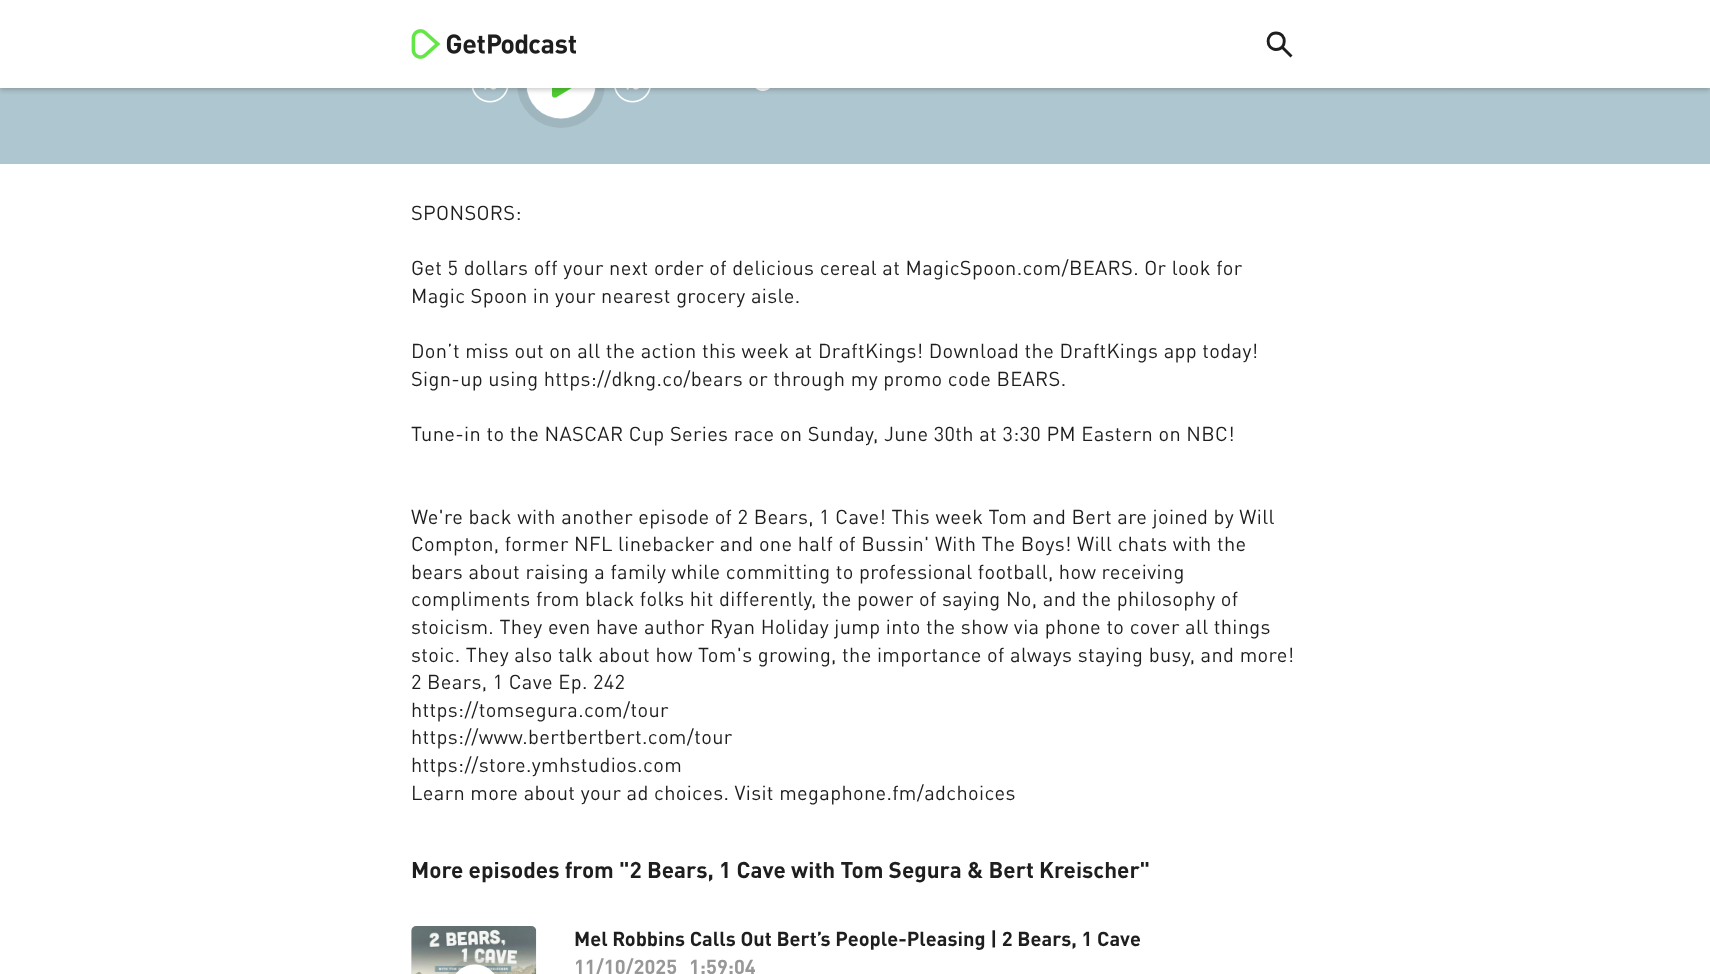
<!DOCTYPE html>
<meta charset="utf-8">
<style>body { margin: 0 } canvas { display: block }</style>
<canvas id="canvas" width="1710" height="974"></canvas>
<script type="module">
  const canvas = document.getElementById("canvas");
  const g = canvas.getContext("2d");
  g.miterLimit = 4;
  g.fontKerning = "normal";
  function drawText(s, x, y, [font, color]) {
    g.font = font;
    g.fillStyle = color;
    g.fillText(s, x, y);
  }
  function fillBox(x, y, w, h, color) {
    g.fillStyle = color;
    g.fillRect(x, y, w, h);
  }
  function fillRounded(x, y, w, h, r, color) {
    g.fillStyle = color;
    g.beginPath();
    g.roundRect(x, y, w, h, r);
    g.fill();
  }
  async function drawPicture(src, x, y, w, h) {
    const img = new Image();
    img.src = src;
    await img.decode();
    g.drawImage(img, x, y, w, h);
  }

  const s1 = ["20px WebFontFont", "#1E1E1E"];
  const s2 = ["bold 22.5px WebFontFont", "#1E1E1E"];
  const s3 = ["bold 20px WebFontFont", "#1E1E1E"];
  const s4 = ["bold 20px WebFontFont", "#989898"];

  fillBox(0, 0, 1710, 974, "#FFFFFF");
  fillBox(0, 88, 1710, 76, "#AEC6CF");
  await drawPicture("pic2.png", 0, 88, 1710, 3);
  await drawPicture("pic3.png", 471, 88, 38, 15);
  g.fillStyle = "#FFFFFF";
  g.beginPath();
  g.arc(561, 84, 34.5, 0, Math.PI * 2);
  g.fill();
  g.fillStyle = "#50CD32";
  g.beginPath();
  g.moveTo(556, 70);
  g.lineTo(575, 81.5);
  g.bezierCurveTo(576, 82, 576.5, 83, 576.5, 84);
  g.bezierCurveTo(576.5, 84.5, 576, 85.5, 575, 86);
  g.lineTo(556, 97.5);
  g.bezierCurveTo(555, 97.5, 554, 97.5, 553.5, 97.5);
  g.bezierCurveTo(552.5, 97, 552, 96, 552, 95);
  g.lineTo(552, 72.5);
  g.bezierCurveTo(552, 71.5, 552.5, 70.5, 553.5, 70);
  g.bezierCurveTo(554, 70, 555, 70, 556, 70);
  g.closePath();
  g.fill();
  g.beginPath();
  g.arc(561, 84, 39.5, 0, Math.PI * 2);
  g.strokeStyle = "rgba(0, 0, 0, 0.08)";
  g.lineWidth = 8.8;
  g.stroke();
  await drawPicture("pic4.png", 614, 88, 37, 15);
  g.fillStyle = "#FFFFFF";
  g.beginPath();
  g.arc(763, 81, 10, 0, Math.PI * 2);
  g.fill();
  g.fillStyle = "rgba(0, 0, 0, 0.2)";
  g.filter = "blur(2.5px)";
  g.beginPath();
  g.rect(0, 3, 1710, 87);
  g.fill();
  g.filter = "none";
  fillBox(0, 0, 1710, 88, "#FFFFFF");
  await drawPicture("pic1.png", 411, 29, 165, 30);
  g.beginPath();
  g.moveTo(1276, 49.5);
  g.bezierCurveTo(1265.5, 49.5, 1265.5, 33, 1276, 33);
  g.bezierCurveTo(1287, 33, 1287, 49.5, 1276, 49.5);
  g.closePath();
  g.moveTo(1282.5, 47.5);
  g.lineTo(1291.5, 56.5);
  g.closePath();
  g.strokeStyle = "#1E1E1E";
  g.lineWidth = 2.9;
  g.stroke();
  g.letterSpacing = "0.35px";
  drawText("SPONSORS:", 411, 220, s1);
  drawText("Get 5 dollars off your next order of delicious cereal at MagicSpoon.com/BEARS. Or look for", 411, 275, s1);
  drawText("Magic Spoon in your nearest grocery aisle.", 411, 303, s1);
  drawText("Don’t miss out on all the action this week at DraftKings! Download the DraftKings app today!", 411, 358, s1);
  drawText("Sign-up using https://dkng.co/bears or through my promo code BEARS.", 411, 386, s1);
  drawText("Tune-in to the NASCAR Cup Series race on Sunday, June 30th at 3:30 PM Eastern on NBC!", 411, 441, s1);
  drawText("We're back with another episode of 2 Bears, 1 Cave! This week Tom and Bert are joined by Will", 411, 524, s1);
  drawText("Compton, former NFL linebacker and one half of Bussin' With The Boys! Will chats with the", 411, 551, s1);
  drawText("bears about raising a family while committing to professional football, how receiving", 411, 579, s1);
  drawText("compliments from black folks hit differently, the power of saying No, and the philosophy of", 411, 606, s1);
  drawText("stoicism. They even have author Ryan Holiday jump into the show via phone to cover all things", 411, 634, s1);
  drawText("stoic. They also talk about how Tom's growing, the importance of always staying busy, and more!", 411, 662, s1);
  drawText("2 Bears, 1 Cave Ep. 242", 411, 689, s1);
  drawText("https://tomsegura.com/tour", 411, 717, s1);
  drawText("https://www.bertbertbert.com/tour", 411, 744, s1);
  drawText("https://store.ymhstudios.com", 411, 772, s1);
  drawText("Learn more about your ad choices. Visit megaphone.fm/adchoices", 411, 800, s1);
  g.letterSpacing = "0px";
  drawText("More episodes from \"2 Bears, 1 Cave with Tom Segura & Bert Kreischer\"", 411, 878, s2);
  fillRounded(411, 926, 125, 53, 5, "#F0F0F0");
  await drawPicture("pic5.png", 411, 926, 126, 48);
  await drawPicture("pic6.png", 455, 964, 40, 10);
  g.beginPath();
  g.arc(475, 989, 28, 0, Math.PI * 2);
  g.strokeStyle = "rgba(0, 0, 0, 0.08)";
  g.lineWidth = 6.2;
  g.stroke();
  drawText("Mel Robbins Calls Out Bert’s People-Pleasing | 2 Bears, 1 Cave", 574, 946, s3);
  drawText("11/10/2025", 574, 974, s4);
  drawText("1:59:04", 689, 974, s4);
</script>
